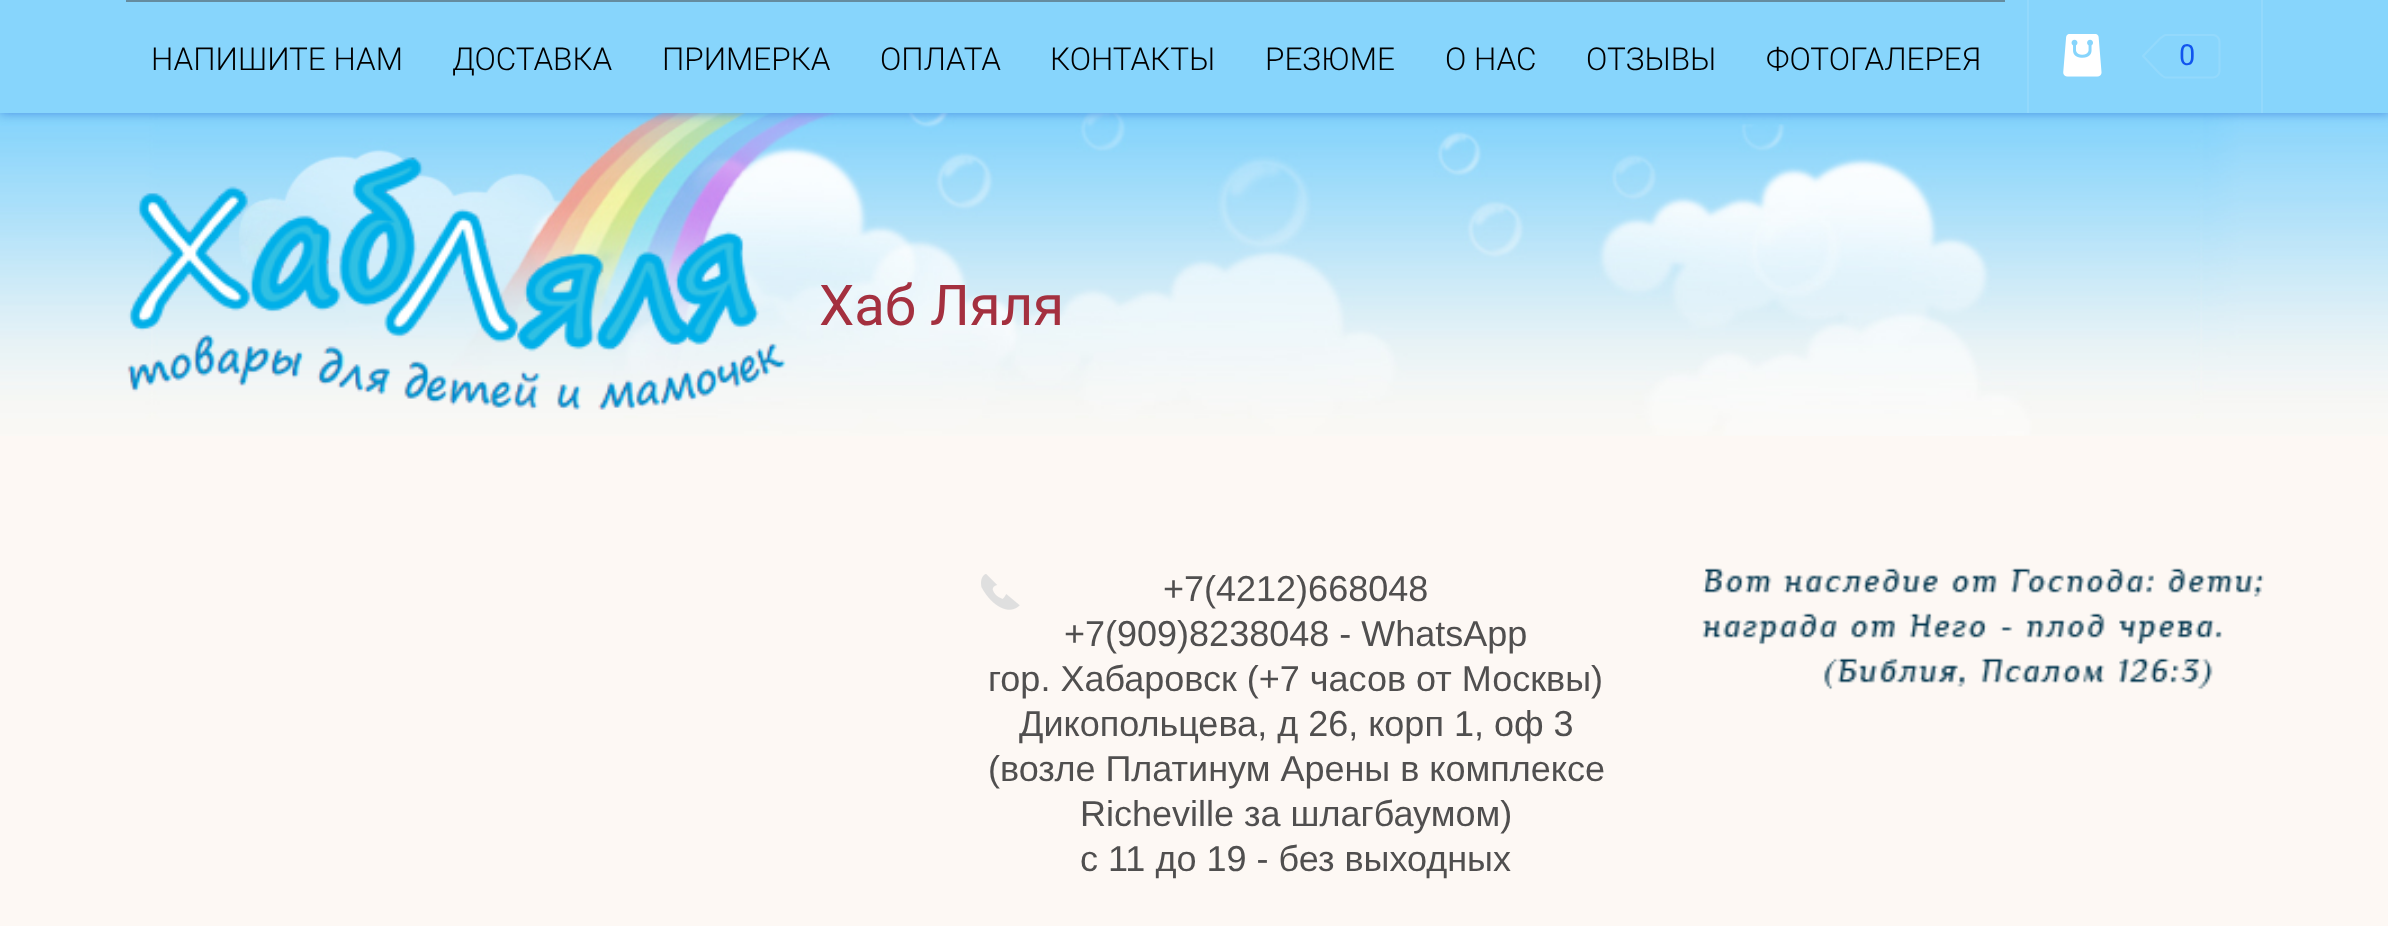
<!DOCTYPE html>
<meta charset="utf-8">
<style>body { margin: 0 } canvas { display: block }</style>
<canvas id="canvas" width="2388" height="926"></canvas>
<script type="module">
  const canvas = document.getElementById("canvas");
  const g = canvas.getContext("2d");
  g.miterLimit = 4;
  g.fontKerning = "normal";
  function drawText(s, x, y, [font, color]) {
    g.font = font;
    g.fillStyle = color;
    g.fillText(s, x, y);
  }
  function fillBox(x, y, w, h, color) {
    g.fillStyle = color;
    g.fillRect(x, y, w, h);
  }
  async function drawPicture(src, x, y, w, h) {
    const img = new Image();
    img.src = src;
    await img.decode();
    g.drawImage(img, x, y, w, h);
  }

  const s1 = ["300 31.5px Roboto", "#000000"];
  const s2 = ["29px Roboto", "#1155EE"];
  const s3 = ["56.25px Roboto", "#A4303F"];
  const s4 = ["36px Liberation Sans", "#504F4F"];

  fillBox(0, 0, 2388, 926, "#FDF8F4");
  await drawPicture("pic1.png", 0, 113, 2388, 323);
  g.fillStyle = "#4A90E2";
  g.filter = "blur(5.5px)";
  g.beginPath();
  g.rect(0, 0, 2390, 113);
  g.fill();
  g.filter = "none";
  fillBox(0, 0, 2388, 113, "#87D5FC");
  fillBox(126, 0, 1879, 2, "#658C9F");
  drawText("НАПИШИТЕ НАМ", 151, 70, s1);
  drawText("ДОСТАВКА", 452, 70, s1);
  drawText("ПРИМЕРКА", 662, 70, s1);
  drawText("ОПЛАТА", 880, 70, s1);
  drawText("КОНТАКТЫ", 1050, 70, s1);
  drawText("РЕЗЮМЕ", 1265, 70, s1);
  drawText("О НАС", 1445, 70, s1);
  drawText("ОТЗЫВЫ", 1586, 70, s1);
  drawText("ФОТОГАЛЕРЕЯ", 1766, 70, s1);
  fillBox(2261, 0, 2, 113, "#93D9FC");
  fillBox(2027, 0, 2, 113, "#93D9FC");
  await drawPicture("pic2.png", 2063, 34, 39, 43);
  g.save();
  g.beginPath();
  g.rect(2142, 34, 79, 45);
  g.clip();
  g.beginPath();
  g.moveTo(2213, 77.5);
  g.lineTo(2165.5, 77.5);
  g.bezierCurveTo(2164, 77.5, 2159, 73, 2159, 73);
  g.lineTo(2143, 56);
  g.lineTo(2159, 39.5);
  g.bezierCurveTo(2159, 39, 2164.5, 35, 2165.5, 35);
  g.lineTo(2213, 35);
  g.bezierCurveTo(2216.5, 35, 2219.5, 38, 2219.5, 41.5);
  g.lineTo(2219.5, 71);
  g.bezierCurveTo(2219.5, 74.5, 2216.5, 77.5, 2213, 77.5);
  g.closePath();
  g.strokeStyle = "#93D9FC";
  g.lineWidth = 2.2;
  g.lineJoin = "round";
  g.stroke();
  g.restore();
  drawText("0", 2179, 65, s2);
  await drawPicture("pic3.png", 127, 157, 659, 253);
  drawText("Хаб Ляля", 819, 325, s3);
  await drawPicture("pic4.png", 981, 574, 39, 36);
  drawText("+7(4212)668048", 1163, 601, s4);
  drawText("+7(909)8238048 - WhatsApp", 1064, 646, s4);
  drawText("гор. Хабаровск (+7 часов от Москвы)", 988, 691, s4);
  drawText("Дикопольцева, д 26, корп 1, оф 3", 1019, 736, s4);
  drawText("(возле Платинум Арены в комплексе", 988, 781, s4);
  drawText("Richeville за шлагбаумом)", 1080, 826, s4);
  drawText("с 11 до 19 - без выходных", 1080, 871, s4);
  await drawPicture("pic5.png", 1702, 568, 562, 122);
</script>
